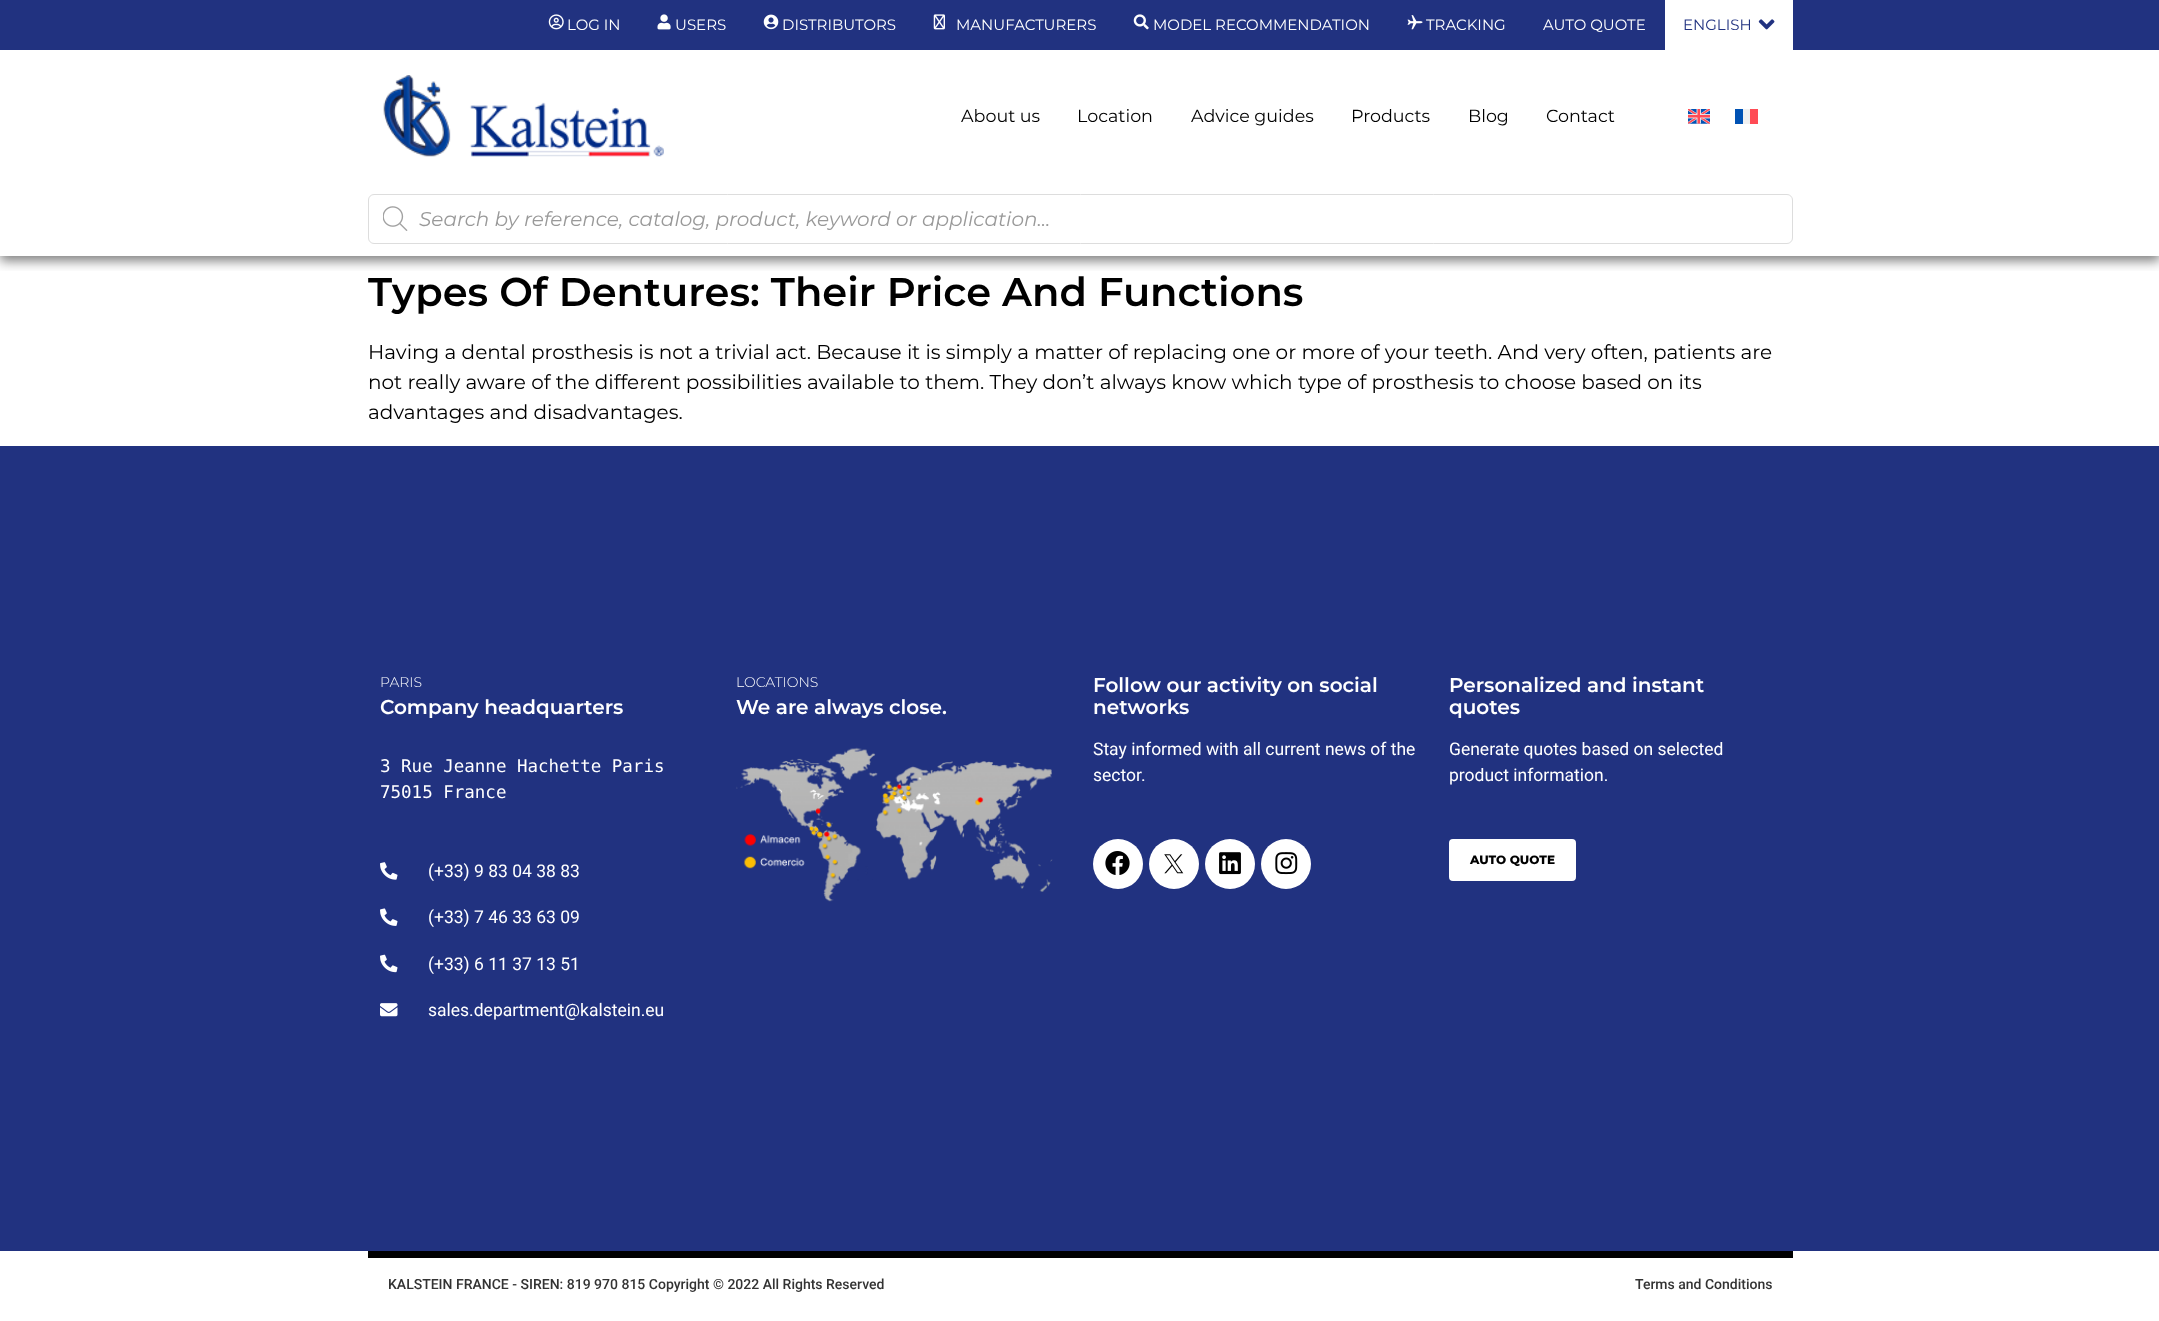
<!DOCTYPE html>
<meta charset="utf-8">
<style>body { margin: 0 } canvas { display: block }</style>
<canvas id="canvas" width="2159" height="1321"></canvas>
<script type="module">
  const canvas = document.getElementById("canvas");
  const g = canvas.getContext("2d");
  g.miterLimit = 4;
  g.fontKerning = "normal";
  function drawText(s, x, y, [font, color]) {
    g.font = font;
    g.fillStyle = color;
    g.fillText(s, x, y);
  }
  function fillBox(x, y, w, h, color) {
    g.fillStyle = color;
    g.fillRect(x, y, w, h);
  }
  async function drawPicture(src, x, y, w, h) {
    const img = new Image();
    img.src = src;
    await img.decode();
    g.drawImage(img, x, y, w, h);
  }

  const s1 = ["15px Montserrat", "#FFFFFF"];
  const s2 = ["15px Montserrat", "#213280"];
  const s3 = ["17.5px Montserrat", "#000000"];
  const s4 = ["italic 20px Montserrat", "#999999"];
  const s5 = ["600 40px Montserrat", "#000000"];
  const s6 = ["20px Montserrat", "#000000"];
  const s7 = ["300 14px Montserrat", "#FFFFFF"];
  const s8 = ["600 20px Montserrat", "#FFFFFF"];
  const s9 = ["17.5px DejaVu Sans Mono", "#FFFFFF"];
  const s10 = ["17.5px Roboto", "#FFFFFF"];
  const s11 = ["800 12px Montserrat", "#000000"];
  const s12 = ["500 14px Roboto", "#333333"];

  fillBox(0, 0, 2159, 1321, "#FFFFFF");
  g.save();
  g.beginPath();
  g.rect(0, 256, 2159, 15);
  g.clip();
  g.fillStyle = "rgba(0, 0, 0, 0.5)";
  g.filter = "blur(6px)";
  g.beginPath();
  g.rect(0, 5, 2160, 256);
  g.fill();
  g.filter = "none";
  g.restore();
  fillBox(0, 0, 2159, 50, "#213280");
  await drawPicture("pic1.png", 548, 14, 16, 16);
  drawText("LOG IN", 567, 30, s1);
  await drawPicture("pic2.png", 657, 14, 14, 16);
  drawText("USERS", 675, 30, s1);
  await drawPicture("pic3.png", 763, 14, 16, 16);
  drawText("DISTRIBUTORS", 782, 30, s1);
  await drawPicture("pic4.png", 933, 14, 12, 16);
  drawText("MANUFACTURERS", 956, 30, s1);
  await drawPicture("pic5.png", 1133, 14, 16, 16);
  drawText("MODEL RECOMMENDATION", 1153, 30, s1);
  await drawPicture("pic6.png", 1407, 15, 16, 15);
  drawText("TRACKING", 1426, 30, s1);
  drawText("AUTO QUOTE", 1543, 30, s1);
  fillBox(1665, 0, 128, 50, "#FFFFFF");
  drawText("ENGLISH", 1683, 30, s2);
  await drawPicture("pic7.png", 1758, 19, 17, 11);
  await drawPicture("pic8.png", 383, 75, 281, 82);
  drawText("About us", 961, 122, s3);
  drawText("Location", 1077, 122, s3);
  drawText("Advice guides", 1191, 122, s3);
  drawText("Products", 1351, 122, s3);
  drawText("Blog", 1468, 122, s3);
  drawText("Contact", 1546, 122, s3);
  await drawPicture("pic9.png", 1688, 109, 22, 15);
  fillBox(1735, 109, 8, 15, "#0052B4");
  fillBox(1743, 109, 7, 15, "#F0F0F0");
  fillBox(1750, 109, 8, 15, "#FF4B55");
  g.beginPath();
  g.roundRect(368.5, 194.5, 1424, 49, 5.5);
  g.strokeStyle = "#DDDDDD";
  g.stroke();
  await drawPicture("pic10.png", 383, 206, 25, 25);
  drawText("Search by reference, catalog, product, keyword or application...", 419, 226, s4);
  drawText("Types Of Dentures: Their Price And Functions", 368, 306, s5);
  drawText("Having a dental prosthesis is not a trivial act. Because it is simply a matter of replacing one or more of your teeth. And very often, patients are", 368, 359, s6);
  drawText("not really aware of the different possibilities available to them. They don’t always know which type of prosthesis to choose based on its", 368, 389, s6);
  drawText("advantages and disadvantages.", 368, 419, s6);
  fillBox(0, 446, 2159, 805, "#213280");
  drawText("PARIS", 380, 687, s7);
  drawText("Company headquarters", 380, 714, s8);
  drawText("3 Rue Jeanne Hachette Paris", 380, 772, s9);
  drawText("75015 France", 380, 798, s9);
  await drawPicture("pic11.png", 380, 862, 18, 18);
  drawText("(+33) 9 83 04 38 83", 428, 877, s10);
  await drawPicture("pic12.png", 380, 908, 18, 18);
  drawText("(+33) 7 46 33 63 09", 428, 923, s10);
  await drawPicture("pic13.png", 380, 954, 18, 19);
  drawText("(+33) 6 11 37 13 51", 428, 970, s10);
  await drawPicture("pic14.png", 380, 1003, 18, 14);
  drawText("sales.department@kalstein.eu", 428, 1016, s10);
  drawText("LOCATIONS", 736, 687, s7);
  drawText("We are always close.", 736, 714, s8);
  await drawPicture("pic15.png", 736, 747, 317, 155);
  drawText("Follow our activity on social", 1093, 692, s8);
  drawText("networks", 1093, 714, s8);
  drawText("Stay informed with all current news of the", 1093, 755, s10);
  drawText("sector.", 1093, 781, s10);
  g.beginPath();
  g.arc(1118, 864, 25, 0, Math.PI * 2);
  g.fill();
  await drawPicture("pic16.png", 1105, 851, 25, 24);
  g.beginPath();
  g.arc(1174, 864, 25, 0, Math.PI * 2);
  g.fill();
  await drawPicture("pic17.png", 1164, 854, 20, 20);
  g.beginPath();
  g.arc(1230, 864, 25, 0, Math.PI * 2);
  g.fill();
  await drawPicture("pic18.png", 1219, 852, 22, 23);
  g.beginPath();
  g.arc(1286, 864, 25, 0, Math.PI * 2);
  g.fill();
  await drawPicture("pic19.png", 1275, 852, 23, 23);
  drawText("Personalized and instant", 1449, 692, s8);
  drawText("quotes", 1449, 714, s8);
  drawText("Generate quotes based on selected", 1449, 755, s10);
  drawText("product information.", 1449, 781, s10);
  g.beginPath();
  g.roundRect(1450.5, 840.5, 124, 39, 2.5);
  g.fill();
  g.strokeStyle = "#FFFFFF";
  g.lineWidth = 3;
  g.stroke();
  drawText("AUTO QUOTE", 1470, 864, s11);
  fillBox(368, 1251, 1425, 7, "#000000");
  drawText("KALSTEIN FRANCE - SIREN: 819 970 815 Copyright © 2022 All Rights Reserved", 388, 1289, s12);
  drawText("Terms and Conditions", 1635, 1289, s12);
</script>
